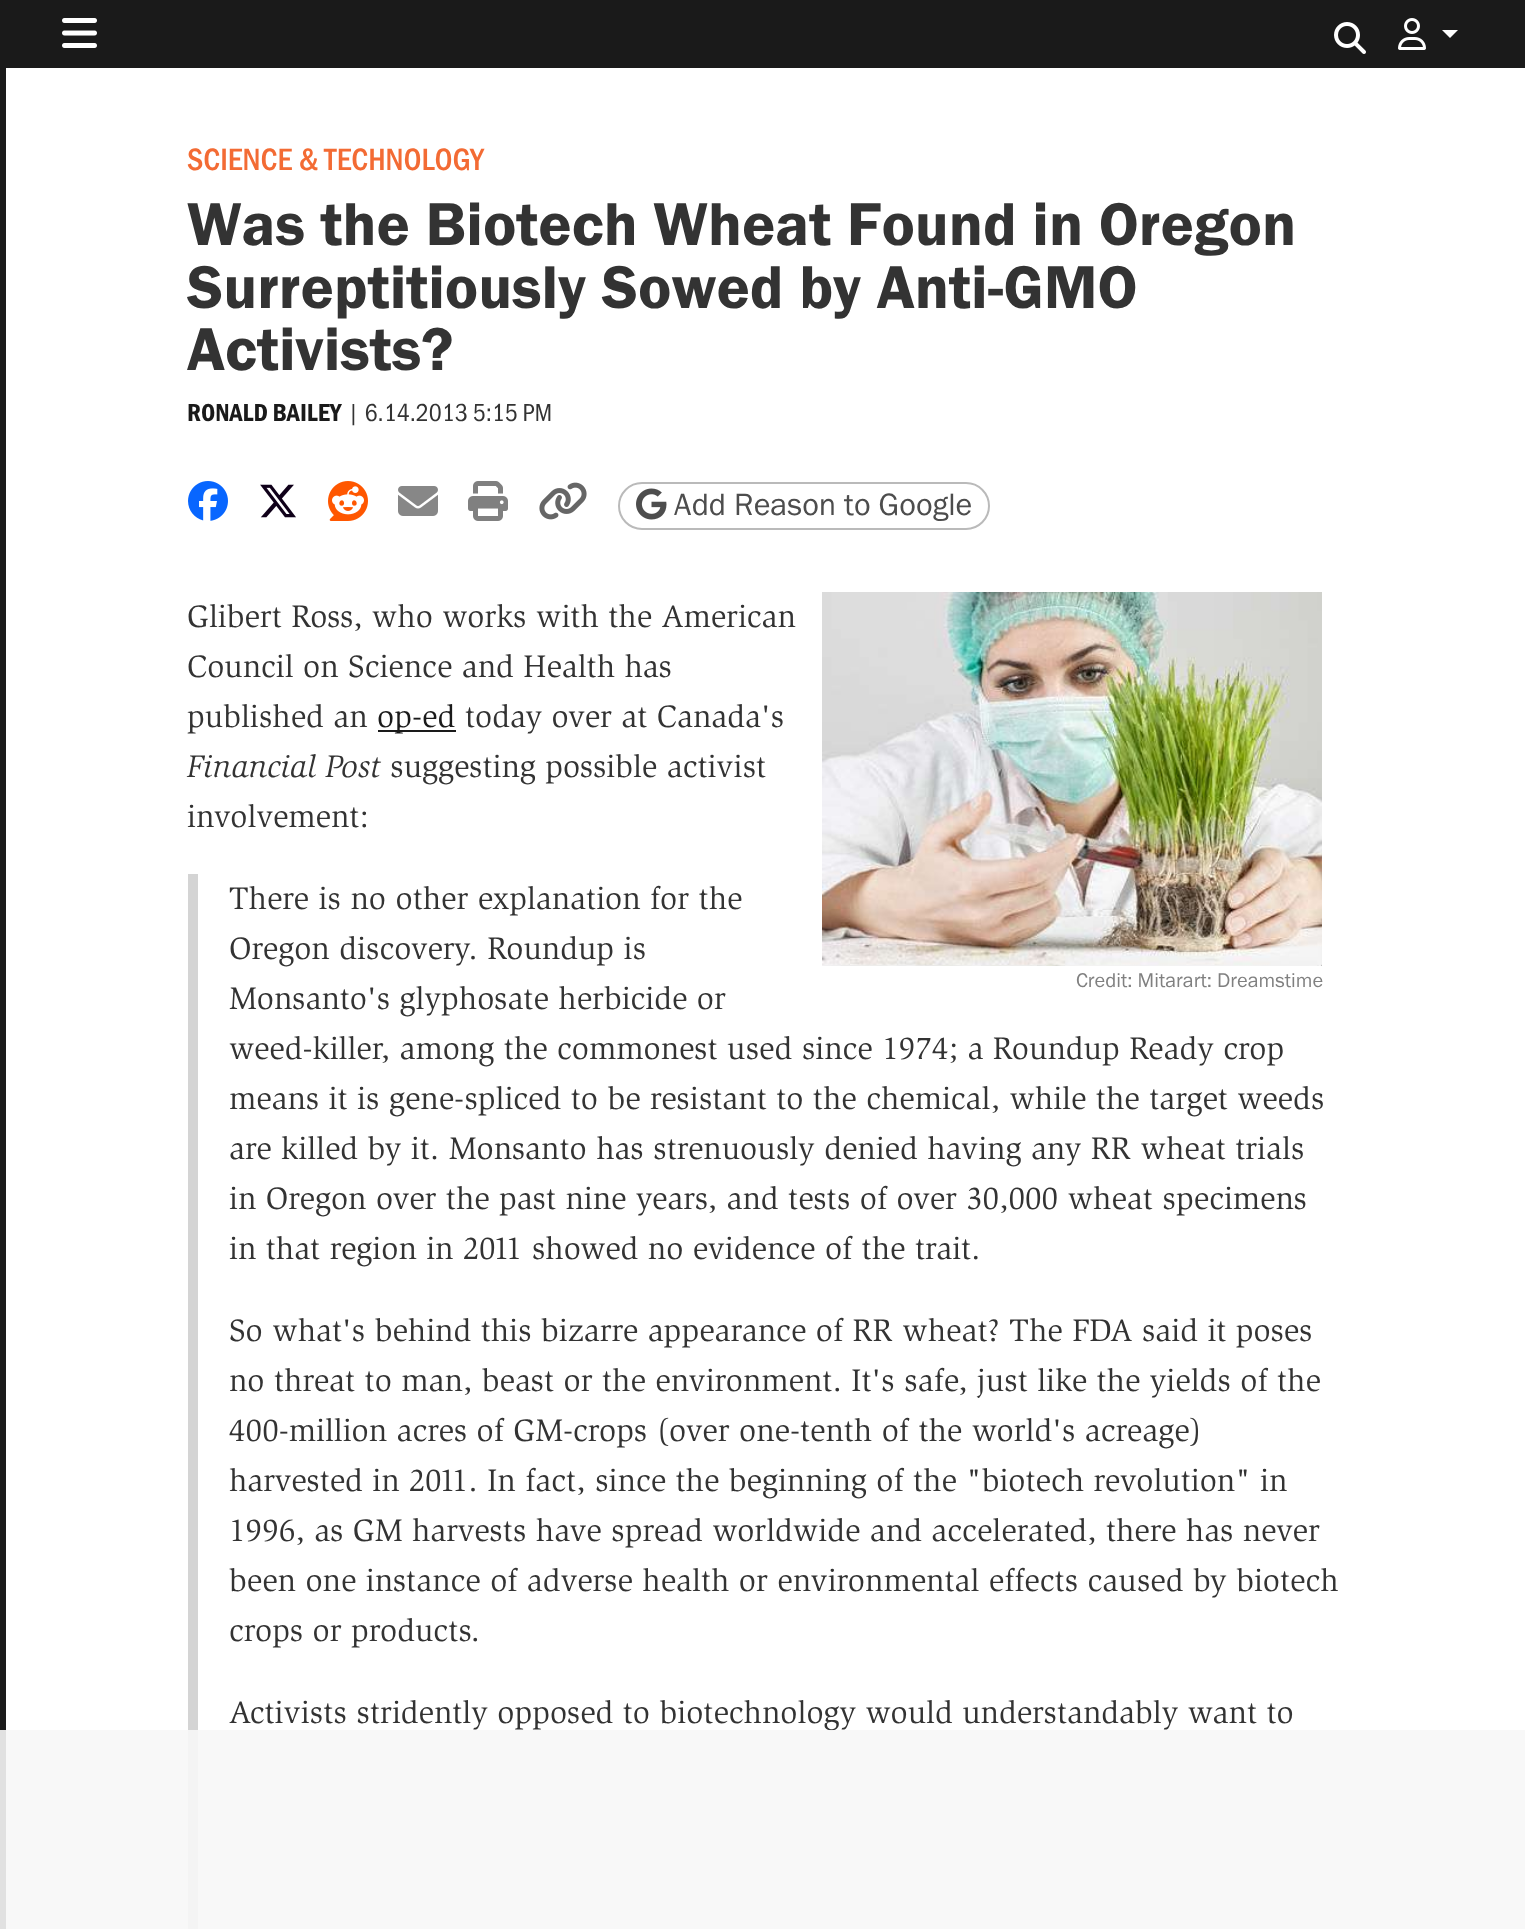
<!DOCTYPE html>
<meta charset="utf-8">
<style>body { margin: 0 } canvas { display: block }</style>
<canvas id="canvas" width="1525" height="1929"></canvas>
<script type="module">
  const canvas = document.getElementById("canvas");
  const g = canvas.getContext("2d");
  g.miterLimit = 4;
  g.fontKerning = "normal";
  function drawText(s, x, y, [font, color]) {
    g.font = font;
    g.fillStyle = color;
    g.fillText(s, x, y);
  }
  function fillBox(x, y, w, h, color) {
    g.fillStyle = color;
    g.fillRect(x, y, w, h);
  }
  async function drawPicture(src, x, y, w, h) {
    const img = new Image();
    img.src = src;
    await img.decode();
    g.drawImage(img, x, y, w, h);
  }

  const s1 = ["500 32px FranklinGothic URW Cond", "#F36B34"];
  const s2 = ["62.5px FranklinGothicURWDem", "#333333"];
  const s3 = ["25.5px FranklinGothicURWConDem", "#1A1A1A"];
  const s4 = ["25.5px FranklinGothic URW Cond", "#333333"];
  const s5 = ["32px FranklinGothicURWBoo", "#4D4D4D"];
  const s6 = ["32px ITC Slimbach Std", "#333333"];
  const s7 = ["32px ITC Slimbach Std", "#1A1A1A"];
  const s8 = ["italic 32px ITC Slimbach Std", "#333333"];
  const s9 = ["20.5px FranklinGothicURWBoo", "#808080"];

  fillBox(0, 0, 1525, 1929, "#FFFFFF");
  fillBox(0, 0, 1525, 68, "#1A1A1A");
  await drawPicture("pic1.png", 62, 18, 35, 30);
  await drawPicture("pic2.png", 1334, 22, 32, 32);
  await drawPicture("pic3.png", 1398, 18, 28, 32);
  g.fillStyle = "#FFFFFF";
  g.beginPath();
  g.moveTo(1442, 30);
  g.lineTo(1458, 30);
  g.lineTo(1450, 38);
  g.closePath();
  g.fill();
  fillBox(0, 68, 6, 1861, "#1A1A1A");
  drawText("SCIENCE & TECHNOLOGY", 187, 170, s1);
  drawText("Was the Biotech Wheat Found in Oregon", 187, 245, s2);
  drawText("Surreptitiously Sowed by Anti-GMO", 187, 308, s2);
  drawText("Activists?", 187, 370, s2);
  drawText("RONALD BAILEY", 187, 421, s3);
  drawText("| 6.14.2013 5:15 PM", 347, 421, s4);
  await drawPicture("pic4.png", 188, 481, 40, 40);
  await drawPicture("pic5.png", 260, 484, 36, 34);
  await drawPicture("pic6.png", 328, 481, 40, 40);
  await drawPicture("pic7.png", 398, 486, 40, 30);
  await drawPicture("pic8.png", 468, 481, 40, 40);
  await drawPicture("pic9.png", 539, 482, 48, 38);
  g.beginPath();
  g.roundRect(619, 483, 370, 46, 23);
  g.strokeStyle = "#BABABA";
  g.lineWidth = 2;
  g.stroke();
  await drawPicture("pic10.png", 636, 488, 31, 32);
  drawText("Add Reason to Google", 674, 515, s5);
  drawText("Glibert Ross, who works with the American", 187, 627, s6);
  drawText("Council on Science and Health has", 187, 677, s6);
  drawText("published an", 187, 727, s6);
  fillBox(378, 730, 78, 2, "#1A1A1A");
  drawText("op-ed", 377, 727, s7);
  drawText("today over at Canada's", 465, 727, s6);
  drawText("Financial Post", 187, 777, s8);
  drawText("suggesting possible activist", 390, 777, s6);
  drawText("involvement:", 187, 827, s6);
  fillBox(188, 874, 10, 1055, "#D4D4D4");
  drawText("There is no other explanation for the", 229, 909, s6);
  drawText("Oregon discovery. Roundup is", 229, 959, s6);
  drawText("Monsanto's glyphosate herbicide or", 229, 1009, s6);
  drawText("weed-killer, among the commonest used since 1974; a Roundup Ready crop", 229, 1059, s6);
  drawText("means it is gene-spliced to be resistant to the chemical, while the target weeds", 229, 1109, s6);
  drawText("are killed by it. Monsanto has strenuously denied having any RR wheat trials", 229, 1159, s6);
  drawText("in Oregon over the past nine years, and tests of over 30,000 wheat specimens", 229, 1209, s6);
  drawText("in that region in 2011 showed no evidence of the trait.", 229, 1259, s6);
  drawText("So what's behind this bizarre appearance of RR wheat? The FDA said it poses", 229, 1341, s6);
  drawText("no threat to man, beast or the environment. It's safe, just like the yields of the", 229, 1391, s6);
  drawText("400-million acres of GM-crops (over one-tenth of the world's acreage)", 229, 1441, s6);
  drawText("harvested in 2011. In fact, since the beginning of the \"biotech revolution\" in", 229, 1491, s6);
  drawText("1996, as GM harvests have spread worldwide and accelerated, there has never", 229, 1541, s6);
  drawText("been one instance of adverse health or environmental effects caused by biotech", 229, 1591, s6);
  drawText("crops or products.", 229, 1641, s6);
  drawText("Activists stridently opposed to biotechnology would understandably want to", 229, 1723, s6);
  await drawPicture("pic11.png", 822, 592, 500, 374);
  drawText("Credit: Mitarart: Dreamstime", 1076, 987, s9);
  fillBox(0, 1730, 1525, 199, "rgba(247, 247, 247, 0.9)");
</script>
